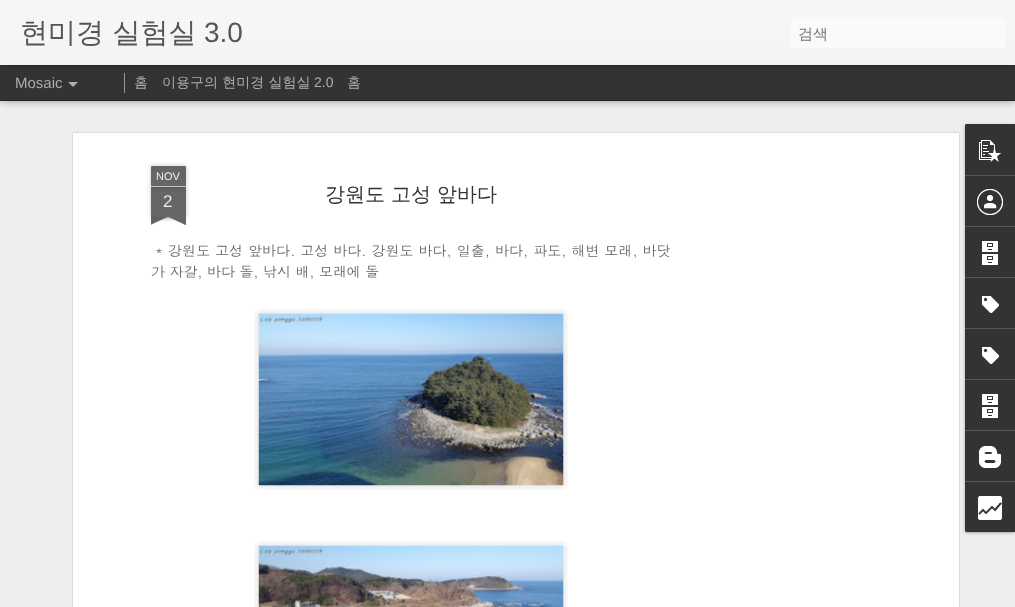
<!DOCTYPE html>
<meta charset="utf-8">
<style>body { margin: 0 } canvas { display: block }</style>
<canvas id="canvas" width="1015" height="607"></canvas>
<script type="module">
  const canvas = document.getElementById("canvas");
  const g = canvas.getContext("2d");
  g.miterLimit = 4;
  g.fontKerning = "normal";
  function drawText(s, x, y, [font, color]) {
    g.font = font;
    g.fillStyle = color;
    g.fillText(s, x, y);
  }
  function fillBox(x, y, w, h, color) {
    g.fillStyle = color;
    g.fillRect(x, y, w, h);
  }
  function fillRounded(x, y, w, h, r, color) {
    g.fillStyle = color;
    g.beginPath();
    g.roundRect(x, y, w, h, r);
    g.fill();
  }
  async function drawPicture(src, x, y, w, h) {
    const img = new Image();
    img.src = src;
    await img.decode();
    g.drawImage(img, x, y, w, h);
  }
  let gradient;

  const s1 = ["500 28px WenQuanYi Zen Hei", "#555555"];
  const s2 = ["28px Liberation Sans", "#555555"];
  const s3 = ["500 15px WenQuanYi Zen Hei", "#757575"];
  const s4 = ["15px Liberation Sans", "#ADADAD"];
  const s5 = ["500 14px WenQuanYi Zen Hei", "#ADADAD"];
  const s6 = ["14px Liberation Sans", "#ADADAD"];
  const s7 = ["11px Liberation Sans", "#EEEEEE"];
  const s8 = ["17px Liberation Sans", "#EEEEEE"];
  const s9 = ["500 20px WenQuanYi Zen Hei", "#333333"];
  const s10 = ["14px Dotum", "#666666"];

  fillBox(0, 0, 1015, 607, "#333333");
  fillBox(0, 101, 1015, 506, "#EEEEEE");
  g.fillStyle = "rgba(0, 0, 0, 0.5)";
  g.filter = "blur(4px)";
  g.beginPath();
  g.rect(0, 65, 1015, 35);
  g.fill();
  g.filter = "none";
  fillBox(0, 65, 1015, 35, "#333333");
  fillBox(124, 73, 1, 20, "#999999");
  g.fillStyle = "rgba(0, 0, 0, 0.3)";
  g.filter = "blur(2.5px)";
  g.beginPath();
  g.rect(0, 0, 1015, 65);
  g.fill();
  g.filter = "none";
  gradient = g.createLinearGradient(0, 0, 0, 65);
  gradient.addColorStop(0, "#F7F7F7");
  gradient.addColorStop(1, "#F4F4F4");
  g.fillStyle = gradient;
  g.fillRect(0, 0, 1015, 65);
  drawText("현미경 실험실", 20, 42, s1);
  drawText("3.0", 204, 42, s2);
  fillRounded(791, 18, 214, 30, 3, "#FAFAFA");
  drawText("검색", 798, 39, s3);
  drawText("Mosaic", 15, 88, s4);
  g.beginPath();
  g.moveTo(68, 82);
  g.lineTo(78, 82);
  g.lineTo(73, 87);
  g.closePath();
  g.fill();
  drawText("홈", 134, 87, s5);
  drawText("이용구의 현미경 실험실", 162, 87, s5);
  drawText("2.0", 314, 87, s6);
  drawText("홈", 347, 87, s5);
  fillBox(71, 131, 890, 476, "#FFFFFF");
  await drawPicture("pic1.png", 71, 131, 890, 476);
  g.fillStyle = "rgba(0, 0, 0, 0.2)";
  g.filter = "blur(2.5px)";
  g.beginPath();
  g.rect(151, 187, 35, 30);
  g.fill();
  g.filter = "none";
  fillBox(151, 187, 35, 30, "#666666");
  g.fillStyle = "rgba(0, 0, 0, 0.2)";
  g.filter = "blur(2.5px)";
  g.beginPath();
  g.roundRect(151, 166, 35, 21, 1);
  g.fill();
  g.filter = "none";
  g.fillStyle = "#666666";
  g.beginPath();
  g.roundRect(151, 166, 35, 21, [1, 1, 0, 0]);
  g.fill();
  fillBox(151, 186, 35, 1, "#C2C2C2");
  drawText("NOV", 156, 180, s7);
  drawText("2", 163, 207, s8);
  g.save();
  g.beginPath();
  g.rect(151, 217, 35, 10);
  g.clip();
  g.fillStyle = "rgba(0, 0, 0, 0.2)";
  g.filter = "blur(2.5px)";
  g.beginPath();
  g.rect(142, 207, 50, 10);
  g.fill();
  g.filter = "none";
  g.restore();
  g.save();
  g.beginPath();
  g.rect(151, 217, 35, 10);
  g.clip();
  g.fillStyle = "#666666";
  g.beginPath();
  g.moveTo(142, 218);
  g.lineTo(187, 197);
  g.lineTo(191, 206);
  g.lineTo(146, 227);
  g.closePath();
  g.fill();
  g.restore();
  g.save();
  g.beginPath();
  g.rect(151, 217, 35, 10);
  g.clip();
  g.fillStyle = "rgba(0, 0, 0, 0.2)";
  g.filter = "blur(2.5px)";
  g.beginPath();
  g.rect(145, 207, 50, 10);
  g.fill();
  g.filter = "none";
  g.restore();
  g.save();
  g.beginPath();
  g.rect(151, 217, 35, 10);
  g.clip();
  g.fillStyle = "#666666";
  g.beginPath();
  g.moveTo(149, 197);
  g.lineTo(194, 218);
  g.lineTo(190, 227);
  g.lineTo(145, 206);
  g.closePath();
  g.fill();
  g.restore();
  drawText("강원도 고성 앞바다", 325, 201, s9);
  g.letterSpacing = "0.08px";
  drawText("* 강원도 고성 앞바다. 고성 바다. 강원도 바다, 일출, 바다, 파도, 해변 모래, 바닷", 155, 256, s10);
  g.letterSpacing = "-0.1px";
  drawText("가 자갈, 바다 돌, 낚시 배, 모래에 돌", 151, 277, s10);
  await drawPicture("pic2.png", 254, 309, 314, 181);
  await drawPicture("pic3.png", 258, 313, 306, 173);
  await drawPicture("pic4.png", 254, 541, 314, 66);
  await drawPicture("pic5.png", 258, 545, 306, 62);
  g.fillStyle = "rgba(0, 0, 0, 0.3)";
  g.filter = "blur(1.5px)";
  g.beginPath();
  g.roundRect(965, 125, 50, 408, 2);
  g.fill();
  g.filter = "none";
  g.fillStyle = "#333333";
  g.beginPath();
  g.roundRect(965, 124, 50, 408, [2, 0, 0, 2]);
  g.fill();
  g.beginPath();
  g.roundRect(965, 124, 50, 51, [2, 0, 0, 0]);
  g.fill();
  await drawPicture("pic6.png", 979, 140, 22, 22);
  fillBox(965, 175, 50, 1, "#585858");
  await drawPicture("pic7.png", 977, 189, 26, 26);
  fillBox(965, 226, 50, 1, "#585858");
  await drawPicture("pic8.png", 982, 241, 16, 24);
  fillBox(965, 277, 50, 1, "#585858");
  await drawPicture("pic9.png", 982, 296, 17, 17);
  fillBox(965, 328, 50, 1, "#585858");
  await drawPicture("pic9.png", 982, 347, 17, 17);
  fillBox(965, 379, 50, 1, "#585858");
  await drawPicture("pic8.png", 982, 394, 16, 24);
  fillBox(965, 430, 50, 1, "#585858");
  await drawPicture("pic10.png", 978, 446, 23, 22);
  g.fillStyle = "#333333";
  g.beginPath();
  g.roundRect(965, 481, 50, 51, [0, 0, 0, 2]);
  g.fill();
  fillBox(965, 481, 50, 1, "#585858");
  await drawPicture("pic11.png", 978, 496, 24, 24);
</script>
